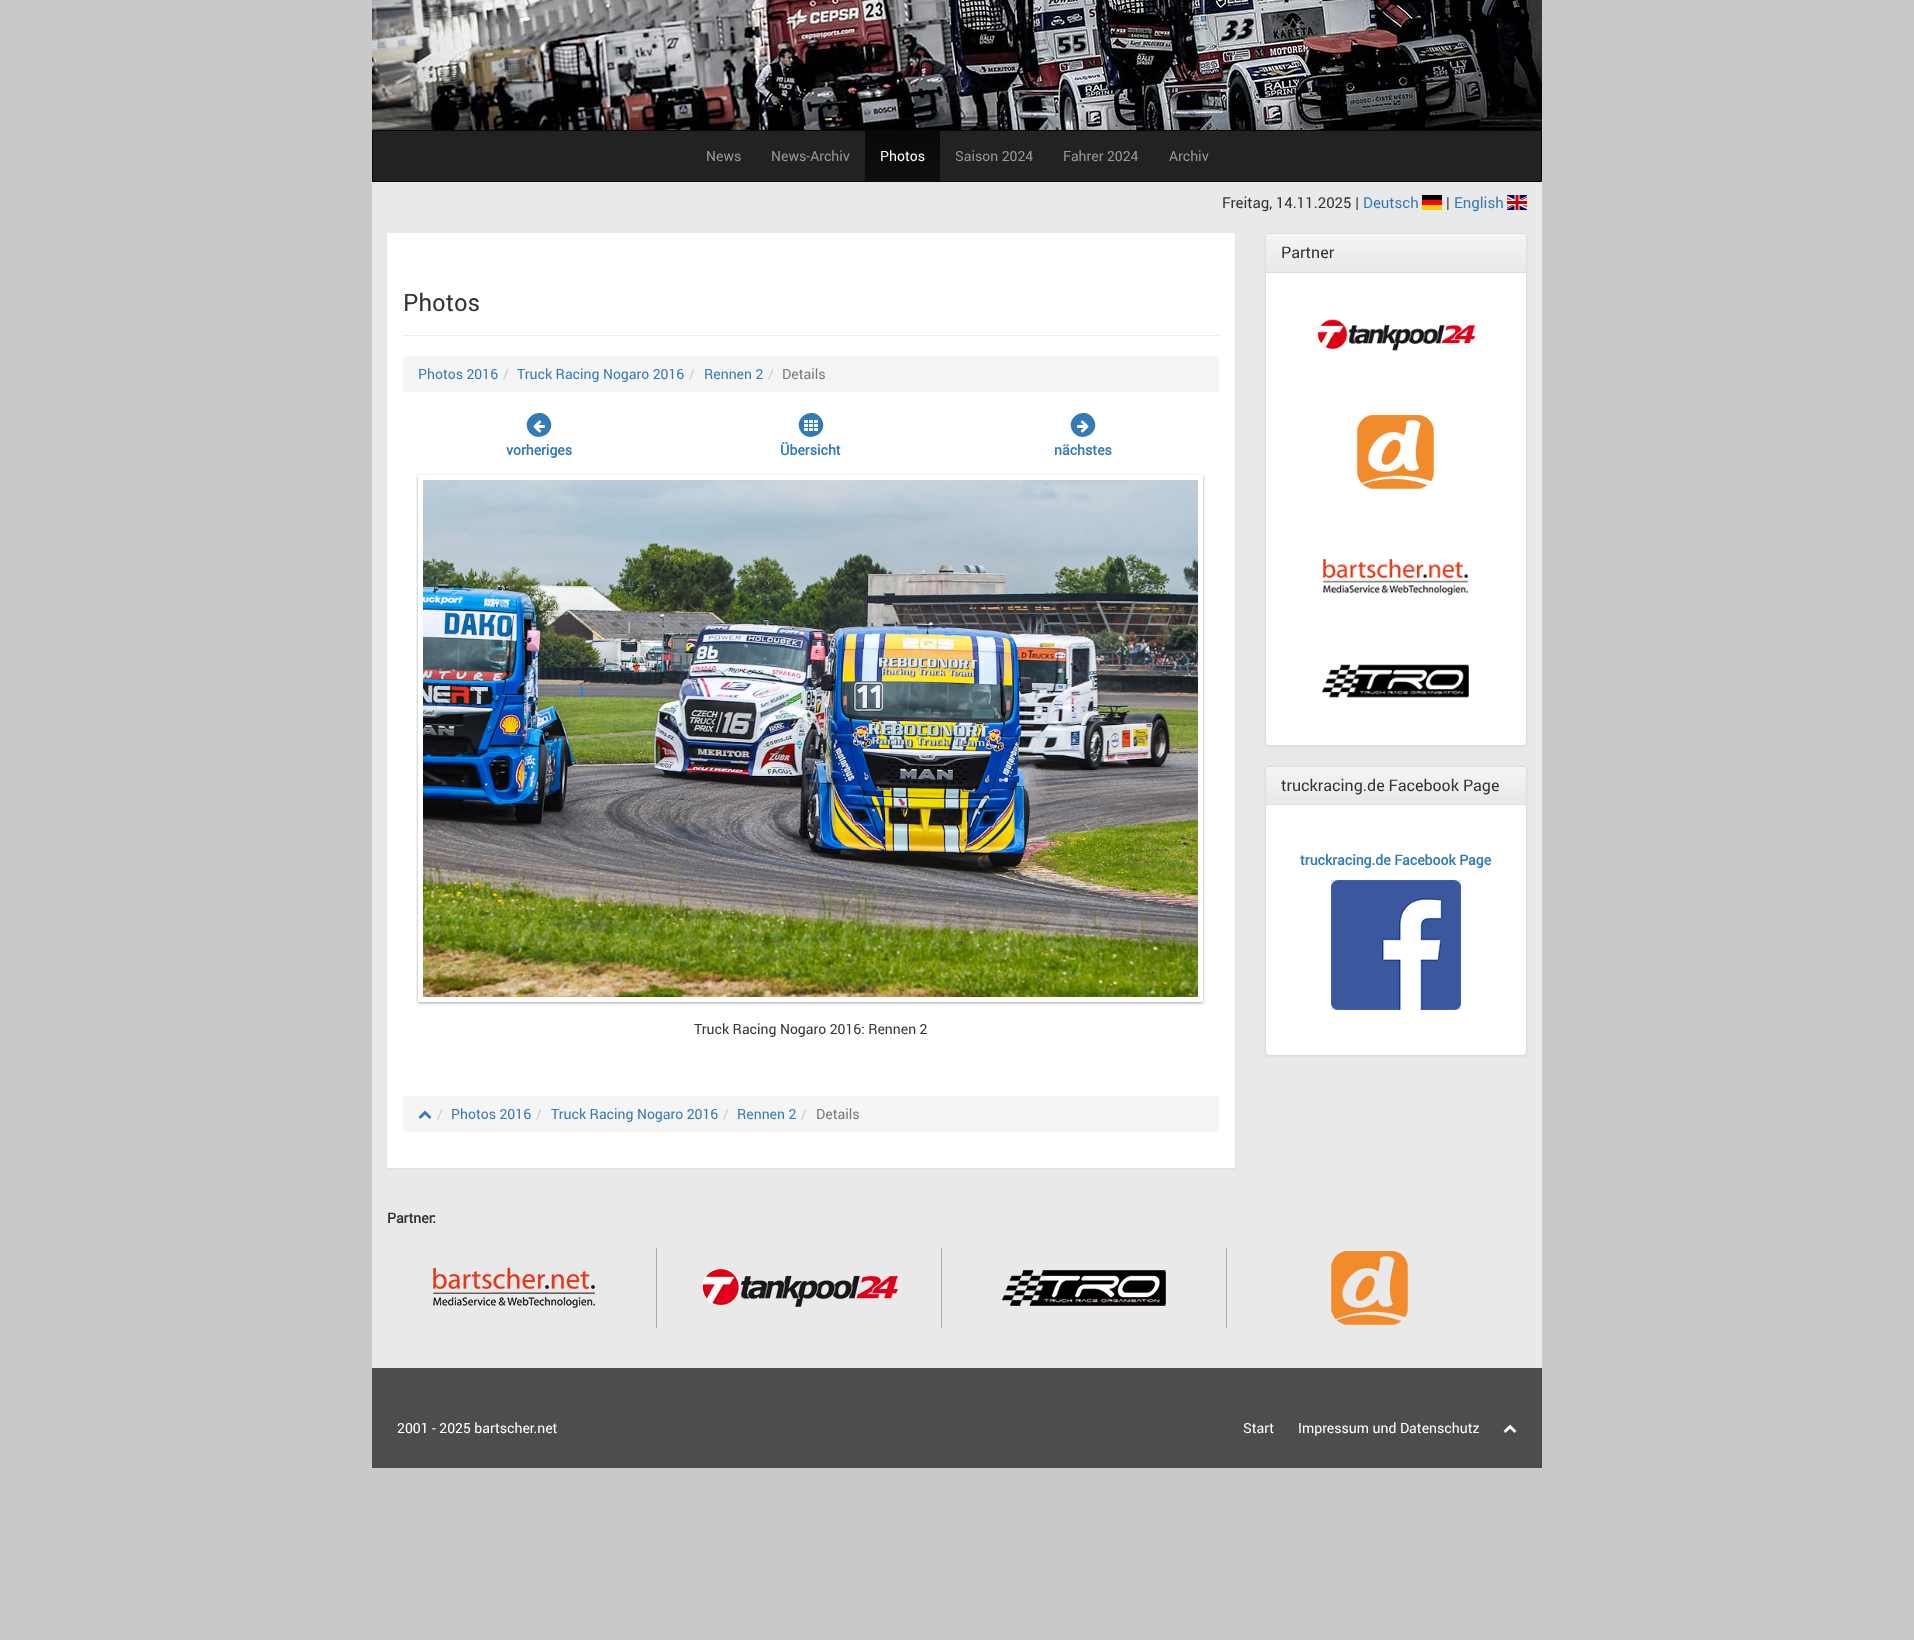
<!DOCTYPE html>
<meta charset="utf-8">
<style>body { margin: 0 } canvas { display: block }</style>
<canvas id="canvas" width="1914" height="1640"></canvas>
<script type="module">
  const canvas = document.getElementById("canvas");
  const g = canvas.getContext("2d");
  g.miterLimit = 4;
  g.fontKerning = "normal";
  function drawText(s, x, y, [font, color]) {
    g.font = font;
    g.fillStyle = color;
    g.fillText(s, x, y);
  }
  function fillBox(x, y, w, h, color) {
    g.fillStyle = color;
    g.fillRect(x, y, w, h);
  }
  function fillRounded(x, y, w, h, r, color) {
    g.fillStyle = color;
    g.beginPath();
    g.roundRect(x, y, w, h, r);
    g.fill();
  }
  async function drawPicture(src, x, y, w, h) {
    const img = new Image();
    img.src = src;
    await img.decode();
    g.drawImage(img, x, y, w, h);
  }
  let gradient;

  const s1 = ["14px Roboto", "#999999"];
  const s2 = ["14px Roboto", "#FFFFFF"];
  const s3 = ["15px Roboto", "#333333"];
  const s4 = ["15px Roboto", "#337AB7"];
  const s5 = ["24px Roboto", "#333333"];
  const s6 = ["14px Roboto", "#337AB7"];
  const s7 = ["14px Roboto", "#CCCCCC"];
  const s8 = ["14px Roboto", "#777777"];
  const s9 = ["bold 14px Roboto", "#337AB7"];
  const s10 = ["14px Roboto", "#333333"];
  const s11 = ["16px Roboto", "#333333"];
  const s12 = ["bold 14px Roboto", "#333333"];

  fillBox(0, 0, 1914, 1640, "#C9C9C9");
  fillBox(372, 182, 1170, 1186, "#E9E9E9");
  await drawPicture("pic1.png", 372, 0, 1170, 130);
  g.fillStyle = "#222222";
  g.beginPath();
  g.rect(372.5, 130.5, 1169, 51);
  g.fill();
  g.strokeStyle = "#080808";
  g.stroke();
  drawText("News", 706, 161, s1);
  drawText("News-Archiv", 771, 161, s1);
  gradient = g.createLinearGradient(903, 131, 903, 181);
  gradient.addColorStop(0, "#080808");
  gradient.addColorStop(1, "#0F0F0F");
  g.fillStyle = gradient;
  g.fillRect(865, 131, 75, 50);
  drawText("Photos", 880, 161, s2);
  drawText("Saison 2024", 955, 161, s1);
  drawText("Fahrer 2024", 1063, 161, s1);
  drawText("Archiv", 1169, 161, s1);
  drawText("Freitag, 14.11.2025 |", 1222, 208, s3);
  drawText("Deutsch", 1363, 208, s4);
  fillBox(1422, 205, 20, 5, "#FFCC00");
  fillBox(1422, 195, 20, 5, "#000000");
  fillBox(1422, 200, 20, 5, "#FF0000");
  drawText("|", 1446, 208, s3);
  drawText("English", 1454, 208, s4);
  await drawPicture("pic2.png", 1507, 195, 20, 15);
  g.fillStyle = "rgba(0, 0, 0, 0.05)";
  g.filter = "blur(1px)";
  g.beginPath();
  g.rect(387, 234, 848, 935);
  g.fill();
  g.filter = "none";
  fillBox(387, 233, 848, 935, "#FFFFFF");
  fillBox(403, 335, 816, 1, "#EEEEEE");
  drawText("Photos", 403, 311, s5);
  fillRounded(403, 356, 816, 36, 4, "#F5F5F5");
  drawText("Photos 2016", 418, 379, s6);
  drawText("/", 503, 379, s7);
  drawText("Truck Racing Nogaro 2016", 517, 379, s6);
  drawText("/", 689, 379, s7);
  drawText("Rennen 2", 704, 379, s6);
  drawText("/", 768, 379, s7);
  drawText("Details", 782, 379, s8);
  g.fillStyle = "#337AB7";
  g.beginPath();
  g.moveTo(549.5, 419);
  g.bezierCurveTo(557.5, 432.5, 536.5, 444.5, 528.5, 431);
  g.bezierCurveTo(520.5, 417.5, 541.5, 405.5, 549.5, 419);
  g.closePath();
  g.fill();
  await drawPicture("pic3.png", 533, 420, 12, 13);
  drawText("vorheriges", 506, 455, s9);
  g.beginPath();
  g.moveTo(821.5, 419);
  g.bezierCurveTo(829.5, 432.5, 808.5, 444.5, 800.5, 431);
  g.bezierCurveTo(792.5, 417.5, 813.5, 405.5, 821.5, 419);
  g.closePath();
  g.fill();
  await drawPicture("pic4.png", 804, 420, 14, 11);
  drawText("Übersicht", 780, 455, s9);
  g.beginPath();
  g.moveTo(1093.5, 419);
  g.bezierCurveTo(1101.5, 432.5, 1080.5, 444.5, 1072.5, 431);
  g.bezierCurveTo(1064.5, 417.5, 1085.5, 405.5, 1093.5, 419);
  g.closePath();
  g.fill();
  await drawPicture("pic5.png", 1077, 420, 12, 13);
  drawText("nächstes", 1054, 455, s9);
  g.save();
  g.beginPath();
  g.moveTo(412, 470);
  g.lineTo(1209, 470);
  g.lineTo(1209, 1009);
  g.lineTo(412, 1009);
  g.closePath();
  g.moveTo(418, 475);
  g.lineTo(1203, 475);
  g.lineTo(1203, 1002);
  g.lineTo(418, 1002);
  g.closePath();
  g.clip("evenodd");
  g.fillStyle = "rgba(34, 25, 25, 0.4)";
  g.filter = "blur(1.5px)";
  g.beginPath();
  g.rect(418, 476, 785, 527);
  g.fill();
  g.filter = "none";
  g.restore();
  await drawPicture("pic6.png", 423, 480, 775, 517);
  drawText("Truck Racing Nogaro 2016: Rennen 2", 694, 1034, s10);
  fillRounded(403, 1096, 816, 36, 4, "#F5F5F5");
  await drawPicture("pic7.png", 418, 1110, 14, 9);
  drawText("/", 437, 1119, s7);
  drawText("Photos 2016", 451, 1119, s6);
  drawText("/", 536, 1119, s7);
  drawText("Truck Racing Nogaro 2016", 551, 1119, s6);
  drawText("/", 723, 1119, s7);
  drawText("Rennen 2", 737, 1119, s6);
  drawText("/", 801, 1119, s7);
  drawText("Details", 816, 1119, s8);
  g.fillStyle = "rgba(0, 0, 0, 0.05)";
  g.filter = "blur(1px)";
  g.beginPath();
  g.roundRect(1265, 234, 262, 513, 4);
  g.fill();
  g.filter = "none";
  g.fillStyle = "#FFFFFF";
  g.beginPath();
  g.roundRect(1265.5, 233.5, 261, 512, 3.5);
  g.fill();
  g.strokeStyle = "#DDDDDD";
  g.stroke();
  gradient = g.createLinearGradient(1396, 234, 1396, 272);
  gradient.addColorStop(0, "#F5F5F5");
  gradient.addColorStop(1, "#E8E8E8");
  g.fillStyle = gradient;
  g.beginPath();
  g.roundRect(1266, 234, 260, 38, [3, 3, 0, 0]);
  g.fill();
  fillBox(1266, 272, 260, 1, "#DDDDDD");
  drawText("Partner", 1281, 258, s11);
  await drawPicture("pic8.png", 1317, 319, 159, 32);
  await drawPicture("pic9.png", 1357, 415, 77, 74);
  await drawPicture("pic10.png", 1323, 559, 145, 36);
  await drawPicture("pic11.png", 1322, 664, 147, 34);
  g.fillStyle = "rgba(0, 0, 0, 0.05)";
  g.filter = "blur(1px)";
  g.beginPath();
  g.roundRect(1265, 767, 262, 290, 4);
  g.fill();
  g.filter = "none";
  g.fillStyle = "#FFFFFF";
  g.beginPath();
  g.roundRect(1265.5, 766.5, 261, 289, 3.5);
  g.fill();
  g.stroke();
  gradient = g.createLinearGradient(1396, 767, 1396, 804);
  gradient.addColorStop(0, "#F5F5F5");
  gradient.addColorStop(1, "#E8E8E8");
  g.fillStyle = gradient;
  g.beginPath();
  g.roundRect(1266, 767, 260, 37, [3, 3, 0, 0]);
  g.fill();
  fillBox(1266, 804, 260, 1, "#DDDDDD");
  drawText("truckracing.de Facebook Page", 1281, 791, s11);
  drawText("truckracing.de Facebook Page", 1300, 865, s9);
  await drawPicture("pic12.png", 1331, 880, 130, 130);
  drawText("Partner:", 387, 1223, s12);
  fillBox(656, 1248, 1, 80, "#A9A9A9");
  await drawPicture("pic13.png", 433, 1268, 162, 40);
  fillBox(941, 1248, 1, 80, "#A9A9A9");
  await drawPicture("pic14.png", 702, 1268, 196, 39);
  fillBox(1226, 1248, 1, 80, "#A9A9A9");
  await drawPicture("pic15.png", 1002, 1270, 164, 36);
  await drawPicture("pic16.png", 1331, 1251, 77, 74);
  fillBox(372, 1368, 1170, 100, "#4D4D4D");
  drawText("2001 - 2025 bartscher.net", 397, 1433, s2);
  drawText("Start", 1243, 1433, s2);
  drawText("Impressum und Datenschutz", 1298, 1433, s2);
  await drawPicture("pic17.png", 1503, 1424, 14, 9);
</script>
